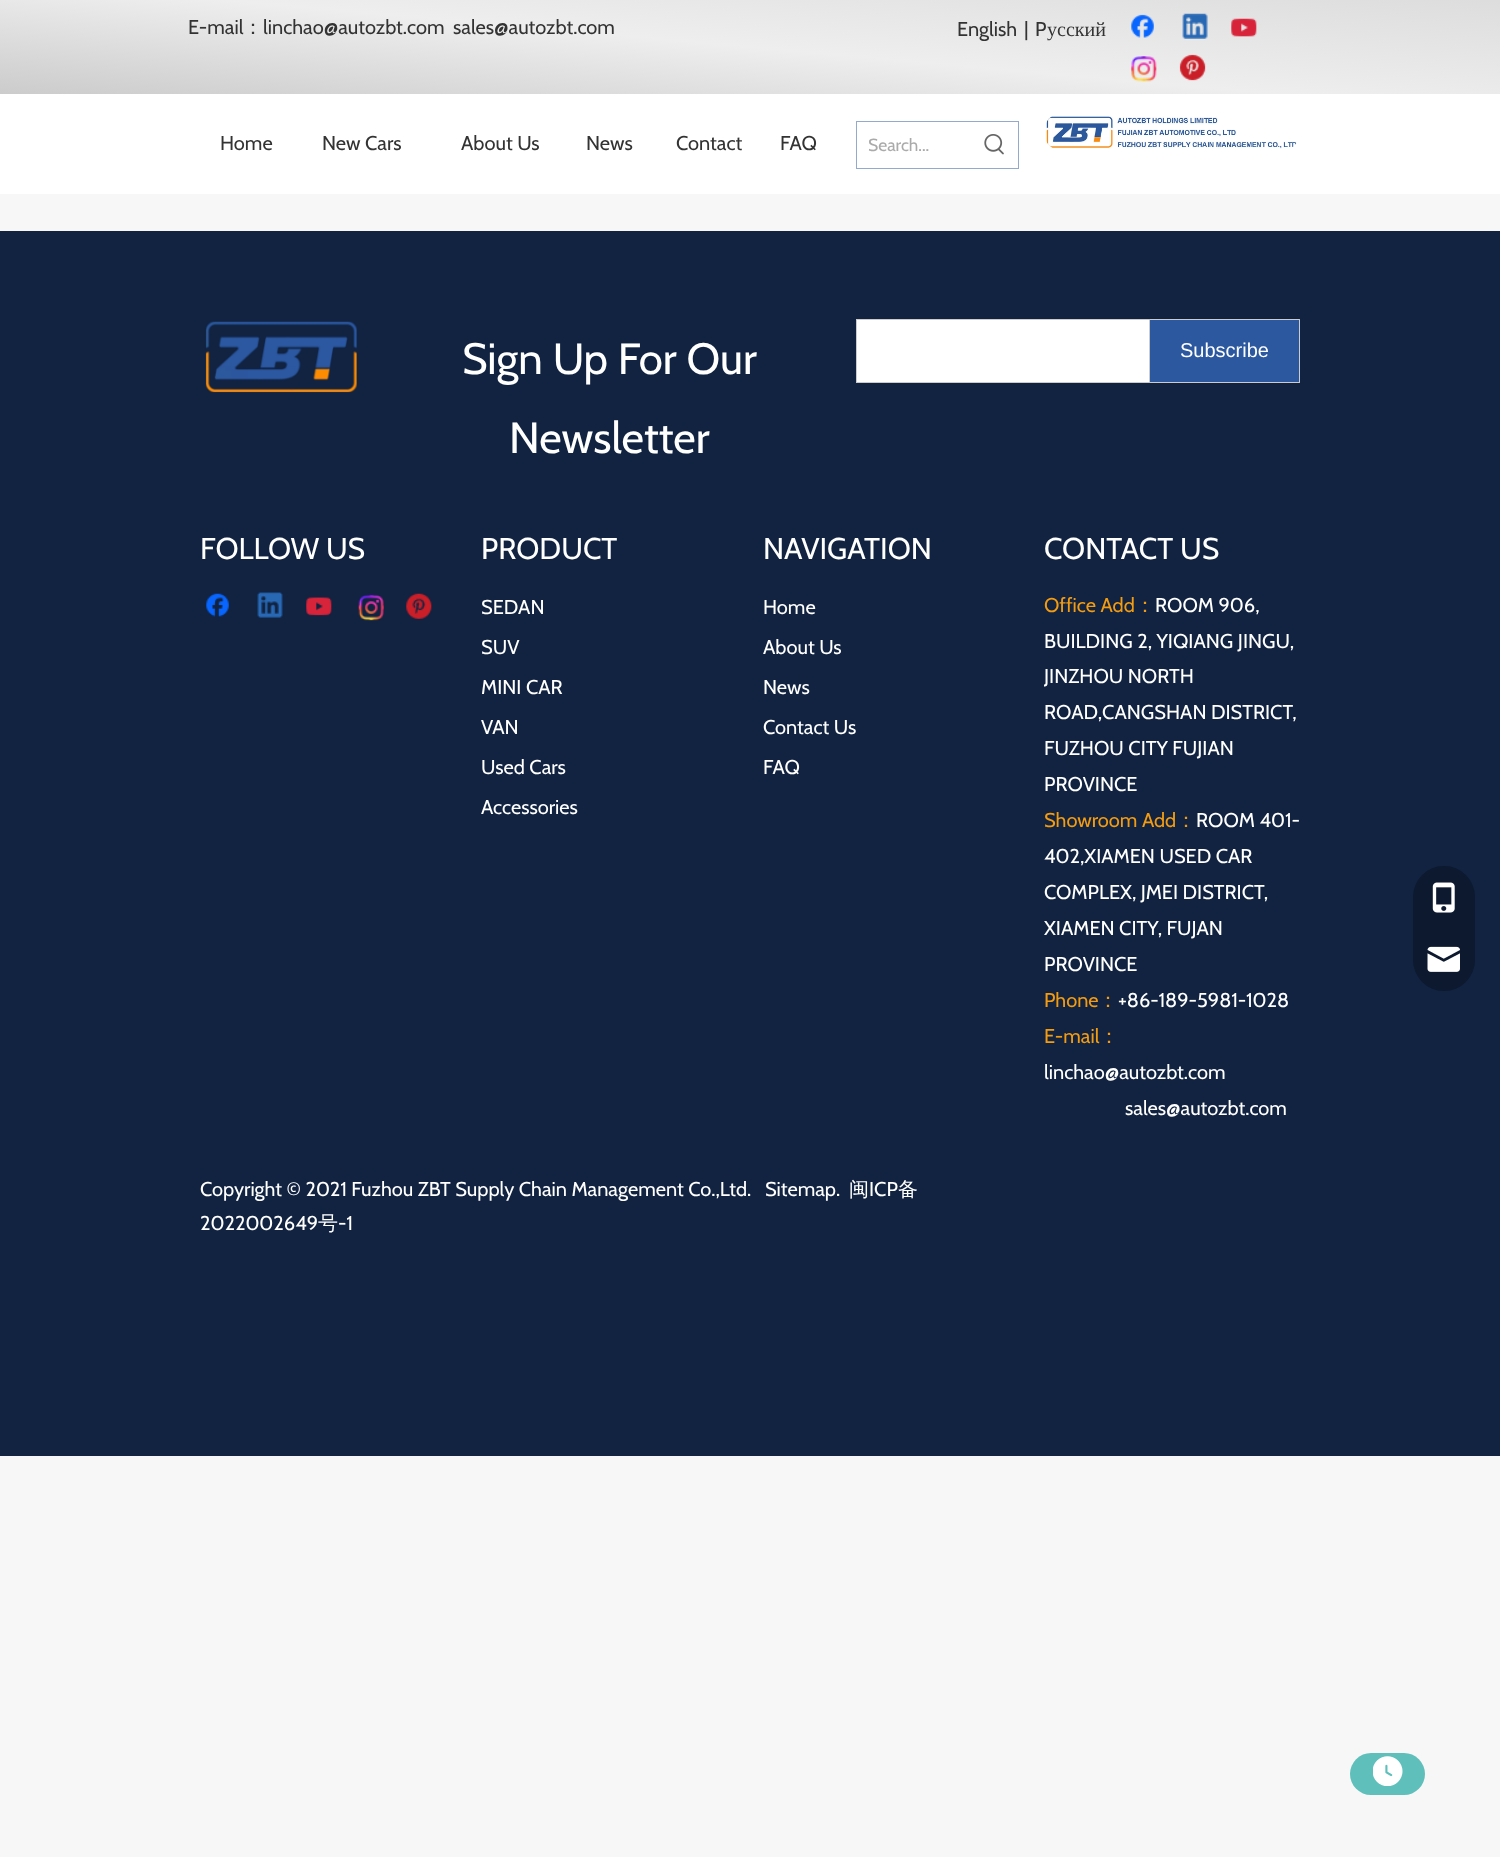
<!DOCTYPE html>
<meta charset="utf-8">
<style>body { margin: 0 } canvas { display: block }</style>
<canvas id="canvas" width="1500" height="1857"></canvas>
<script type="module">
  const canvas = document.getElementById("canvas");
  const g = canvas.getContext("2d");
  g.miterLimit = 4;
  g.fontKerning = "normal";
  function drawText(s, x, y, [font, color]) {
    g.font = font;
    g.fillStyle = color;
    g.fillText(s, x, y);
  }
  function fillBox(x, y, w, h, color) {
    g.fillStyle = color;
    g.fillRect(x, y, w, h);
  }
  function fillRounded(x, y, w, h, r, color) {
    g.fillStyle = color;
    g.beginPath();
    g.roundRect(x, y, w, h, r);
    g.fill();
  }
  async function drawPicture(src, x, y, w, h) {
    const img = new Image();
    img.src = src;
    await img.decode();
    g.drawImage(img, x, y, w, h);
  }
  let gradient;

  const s1 = ["20px Cabin", "#333333"];
  const s2 = ["500 20px WenQuanYi Zen Hei", "#333333"];
  const s3 = ["20px Liberation Serif", "#333333"];
  const s4 = ["17.5px Cabin", "#AAAAAA"];
  const s5 = ["43.75px Cabin", "#FFFFFF"];
  const s6 = ["20px Liberation Sans", "#FFFFFF"];
  const s7 = ["30px Cabin", "#FFFFFF"];
  const s8 = ["20px Cabin", "#FFFFFF"];
  const s9 = ["20px Cabin", "#F39C12"];
  const s10 = ["500 20px WenQuanYi Zen Hei", "#F39C12"];
  const s11 = ["500 20px WenQuanYi Zen Hei", "#FFFFFF"];

  fillBox(0, 0, 1500, 1857, "#F7F7F7");
  gradient = g.createLinearGradient(760, -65, 740, 159);
  gradient.addColorStop(0, "#DDDDDD");
  gradient.addColorStop(0.5, "#EEEEEE");
  gradient.addColorStop(1, "#CCCCCC");
  g.fillStyle = gradient;
  g.fillRect(0, 0, 1500, 94);
  drawText("E-mail", 188, 34, s1);
  drawText("：", 243, 34, s2);
  drawText("linchao@autozbt.com", 263, 34, s1);
  drawText("sales@autozbt.com", 453, 34, s1);
  drawText("English", 957, 36, s1);
  drawText("|", 1024, 36, s1);
  drawText("P", 1035, 36, s1);
  drawText("усский", 1047, 36, s3);
  await drawPicture("pic1.png", 1131, 14, 23, 24);
  await drawPicture("pic2.png", 1182, 13, 26, 26);
  await drawPicture("pic3.png", 1231, 18, 26, 19);
  await drawPicture("pic4.png", 1131, 56, 26, 26);
  await drawPicture("pic5.png", 1179, 54, 27, 27);
  fillRounded(1350, 1753, 75, 42, 21, "#5FBFBA");
  await drawPicture("pic6.png", 1373, 1756, 30, 30);
  fillBox(0, 94, 1500, 100, "#FFFFFF");
  drawText("Home", 220, 150, s1);
  drawText("New Cars", 322, 150, s1);
  drawText("About Us", 461, 150, s1);
  drawText("News", 586, 150, s1);
  drawText("Contact", 676, 150, s1);
  drawText("FAQ", 780, 150, s1);
  g.strokeStyle = "#93AACE";
  g.strokeRect(856.5, 121.5, 162, 47);
  drawText("Search...", 868, 151, s4);
  await drawPicture("pic7.png", 984, 134, 20, 21);
  await drawPicture("pic8.png", 1046, 116, 251, 33);
  fillBox(0, 231, 1500, 1225, "#112341");
  await drawPicture("pic9.png", 205, 321, 152, 72);
  drawText("Sign Up For Our", 462, 374, s5);
  drawText("Newsletter", 509, 453, s5);
  fillBox(857, 320, 292, 62, "#FFFFFF");
  g.strokeStyle = "#CCCCCC";
  g.strokeRect(856.5, 319.5, 443, 63);
  g.fillStyle = "#2C589F";
  g.beginPath();
  g.rect(1149.5, 319.5, 150, 63);
  g.fill();
  g.stroke();
  drawText("Subscribe", 1180, 357, s6);
  drawText("FOLLOW US", 200, 559, s7);
  await drawPicture("pic10.png", 206, 593, 23, 24);
  await drawPicture("pic11.png", 257, 592, 26, 26);
  await drawPicture("pic12.png", 306, 597, 26, 19);
  await drawPicture("pic13.png", 358, 594, 26, 27);
  await drawPicture("pic14.png", 406, 593, 26, 26);
  fillRounded(1413, 866, 62, 125, 31, "#0C192E");
  await drawPicture("pic15.png", 1432, 882, 23, 31);
  await drawPicture("pic16.png", 1427, 946, 33, 26);
  drawText("PRODUCT", 481, 559, s7);
  drawText("SEDAN", 481, 614, s8);
  drawText("SUV", 481, 654, s8);
  drawText("MINI CAR", 481, 694, s8);
  drawText("VAN", 481, 734, s8);
  drawText("Used Cars", 481, 774, s8);
  drawText("Accessories", 481, 814, s8);
  drawText("NAVIGATION", 763, 559, s7);
  drawText("Home", 763, 614, s8);
  drawText("About Us", 763, 654, s8);
  drawText("News", 763, 694, s8);
  drawText("Contact Us", 763, 734, s8);
  drawText("FAQ", 763, 774, s8);
  drawText("CONTACT US", 1044, 559, s7);
  drawText("Office Add", 1044, 612, s9);
  drawText("：", 1135, 612, s10);
  drawText("ROOM 906,", 1155, 612, s8);
  drawText("BUILDING 2, YIQIANG JINGU,", 1044, 648, s8);
  g.save();
  g.beginPath();
  g.rect(1044, 588, 256, 540);
  g.clip();
  drawText("JINZHOU NORTH", 1044, 683, s8);
  g.restore();
  drawText("ROAD,CANGSHAN DISTRICT,", 1044, 719, s8);
  drawText("FUZHOU CITY FUJIAN", 1044, 755, s8);
  drawText("PROVINCE", 1044, 791, s8);
  drawText("Showroom Add", 1044, 827, s9);
  drawText("：", 1176, 827, s10);
  drawText("ROOM 401-", 1196, 827, s8);
  drawText("402,XIAMEN USED CAR", 1044, 863, s8);
  drawText("COMPLEX, JMEI DISTRICT,", 1044, 899, s8);
  drawText("XIAMEN CITY, FUJAN", 1044, 935, s8);
  drawText("PROVINCE", 1044, 971, s8);
  drawText("Phone", 1044, 1007, s9);
  drawText("：", 1098, 1007, s10);
  drawText("+86-189-5981-1028", 1118, 1007, s8);
  drawText("E-mail", 1044, 1043, s9);
  drawText("：", 1099, 1043, s10);
  drawText("linchao@autozbt.com", 1044, 1079, s8);
  drawText("sales@autozbt.com", 1125, 1115, s8);
  drawText("Copyright © 2021 Fuzhou ZBT Supply Chain Management Co.,Ltd.", 200, 1196, s8);
  drawText("Sitemap.", 765, 1196, s8);
  drawText("闽", 849, 1196, s11);
  drawText("ICP", 869, 1196, s8);
  drawText("备", 898, 1196, s11);
  drawText("2022002649", 200, 1230, s8);
  drawText("号", 318, 1230, s11);
  drawText("-1", 338, 1230, s8);
</script>
